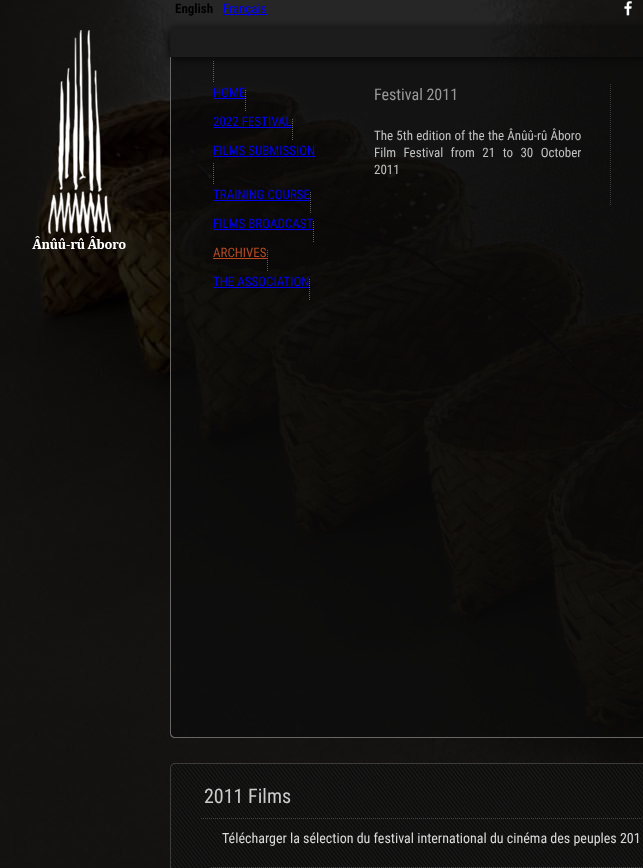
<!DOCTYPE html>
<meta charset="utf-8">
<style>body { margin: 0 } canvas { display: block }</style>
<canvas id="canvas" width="643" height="868"></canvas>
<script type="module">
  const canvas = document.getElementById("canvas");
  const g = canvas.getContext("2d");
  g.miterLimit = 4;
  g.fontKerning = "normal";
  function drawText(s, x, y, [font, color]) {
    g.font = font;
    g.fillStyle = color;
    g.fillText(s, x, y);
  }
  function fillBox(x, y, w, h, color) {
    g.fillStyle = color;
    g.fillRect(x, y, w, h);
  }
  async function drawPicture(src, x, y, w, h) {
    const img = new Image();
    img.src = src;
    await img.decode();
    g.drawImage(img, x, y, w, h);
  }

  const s1 = ["bold 13px Roboto Condensed", "#000000"];
  const s2 = ["13px Roboto Condensed", "#0000EE"];
  const s3 = ["13px Roboto Condensed", "#B34A22"];
  const s4 = ["16px Roboto Condensed", "#999999"];
  const s5 = ["13px Roboto Condensed", "#C1C1C1"];
  const s6 = ["20px Roboto Condensed", "#CCCCCC"];
  const s7 = ["14px Roboto Condensed", "#DADADA"];

  fillBox(0, 0, 643, 868, "#000000");
  await drawPicture("pic1.png", 0, 0, 643, 868);
  await drawPicture("pic2.png", 32, 30, 94, 219);
  g.save();
  g.beginPath();
  g.moveTo(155, 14);
  g.lineTo(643, 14);
  g.lineTo(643, 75);
  g.lineTo(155, 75);
  g.closePath();
  g.moveTo(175, 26);
  g.lineTo(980, 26);
  g.bezierCurveTo(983, 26, 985, 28, 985, 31);
  g.lineTo(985, 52);
  g.bezierCurveTo(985, 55, 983, 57, 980, 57);
  g.lineTo(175, 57);
  g.bezierCurveTo(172, 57, 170, 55, 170, 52);
  g.lineTo(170, 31);
  g.bezierCurveTo(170, 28, 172, 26, 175, 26);
  g.closePath();
  g.clip("evenodd");
  g.filter = "blur(4.5px)";
  g.beginPath();
  g.roundRect(170, 29, 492, 31, 5);
  g.fill();
  g.filter = "none";
  g.restore();
  drawText("English", 175, 13, s1);
  fillBox(223, 14, 44, 1, "#0000EE");
  drawText("Français", 223, 13, s2);
  await drawPicture("pic3.png", 624, 1, 8, 15);
  await drawPicture("pic4.png", 170, 26, 473, 31);
  await drawPicture("pic13.png", 170, 57, 473, 681);
  g.fillStyle = "#666666";
  g.beginPath();
  g.moveTo(170, 57);
  g.lineTo(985, 57);
  g.lineTo(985, 733);
  g.bezierCurveTo(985, 736, 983, 738, 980, 738);
  g.lineTo(175, 738);
  g.bezierCurveTo(172, 738, 170, 736, 170, 733);
  g.closePath();
  g.moveTo(171, 57);
  g.lineTo(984, 57);
  g.lineTo(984, 733);
  g.bezierCurveTo(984, 735, 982, 737, 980, 737);
  g.lineTo(175, 737);
  g.bezierCurveTo(173, 737, 171, 735, 171, 733);
  g.closePath();
  g.fill("evenodd");
  await drawPicture("pic5.png", 213, 61, 1, 21);
  drawText("HOME", 213, 97, s2);
  fillBox(213, 98, 32, 1, "#0000EE");
  await drawPicture("pic6.png", 245, 90, 1, 21);
  drawText("2022 FESTIVAL", 213, 126, s2);
  fillBox(213, 127, 79, 1, "#0000EE");
  await drawPicture("pic7.png", 292, 119, 1, 21);
  drawText("FILMS SUBMISSION", 213, 155, s2);
  fillBox(213, 156, 102, 1, "#0000EE");
  await drawPicture("pic8.png", 213, 163, 1, 21);
  drawText("TRAINING COURSE", 213, 199, s2);
  fillBox(213, 200, 97, 1, "#0000EE");
  await drawPicture("pic9.png", 310, 192, 1, 21);
  drawText("FILMS BROADCAST", 213, 228, s2);
  fillBox(213, 229, 100, 1, "#0000EE");
  await drawPicture("pic10.png", 313, 221, 1, 21);
  drawText("ARCHIVES", 213, 257, s3);
  fillBox(213, 258, 54, 1, "#B34A22");
  await drawPicture("pic11.png", 267, 250, 1, 21);
  drawText("THE ASSOCIATION", 213, 286, s2);
  fillBox(213, 287, 96, 1, "#0000EE");
  await drawPicture("pic12.png", 309, 279, 1, 21);
  drawText("Festival 2011", 374, 100, s4);
  g.wordSpacing = "0.25px";
  drawText("The 5th edition of the the Ânûû-rû Âboro", 374, 140, s5);
  g.wordSpacing = "4.5px";
  drawText("Film Festival from 21 to 30 October", 374, 157, s5);
  g.wordSpacing = "0px";
  drawText("2011", 374, 174, s5);
  g.beginPath();
  g.moveTo(610.5, 84);
  g.lineTo(610.5, 206);
  g.strokeStyle = "#3C3C3C";
  g.setLineDash([1, 1]);
  g.stroke();
  await drawPicture("pic14.png", 170, 763, 473, 105);
  g.beginPath();
  g.roundRect(170.5, 763.5, 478, 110, 4.5);
  g.setLineDash([]);
  g.stroke();
  await drawPicture("pic15.png", 171, 764, 472, 104);
  drawText("2011 Films", 204, 803, s6);
  g.beginPath();
  g.moveTo(201, 818.5);
  g.lineTo(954, 818.5);
  g.strokeStyle = "#444444";
  g.setLineDash([1, 1]);
  g.stroke();
  drawText("Télécharger la sélection du festival international du cinéma des peuples 201", 222, 843, s7);
  g.beginPath();
  g.moveTo(211, 867.5);
  g.lineTo(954, 867.5);
  g.stroke();
</script>
